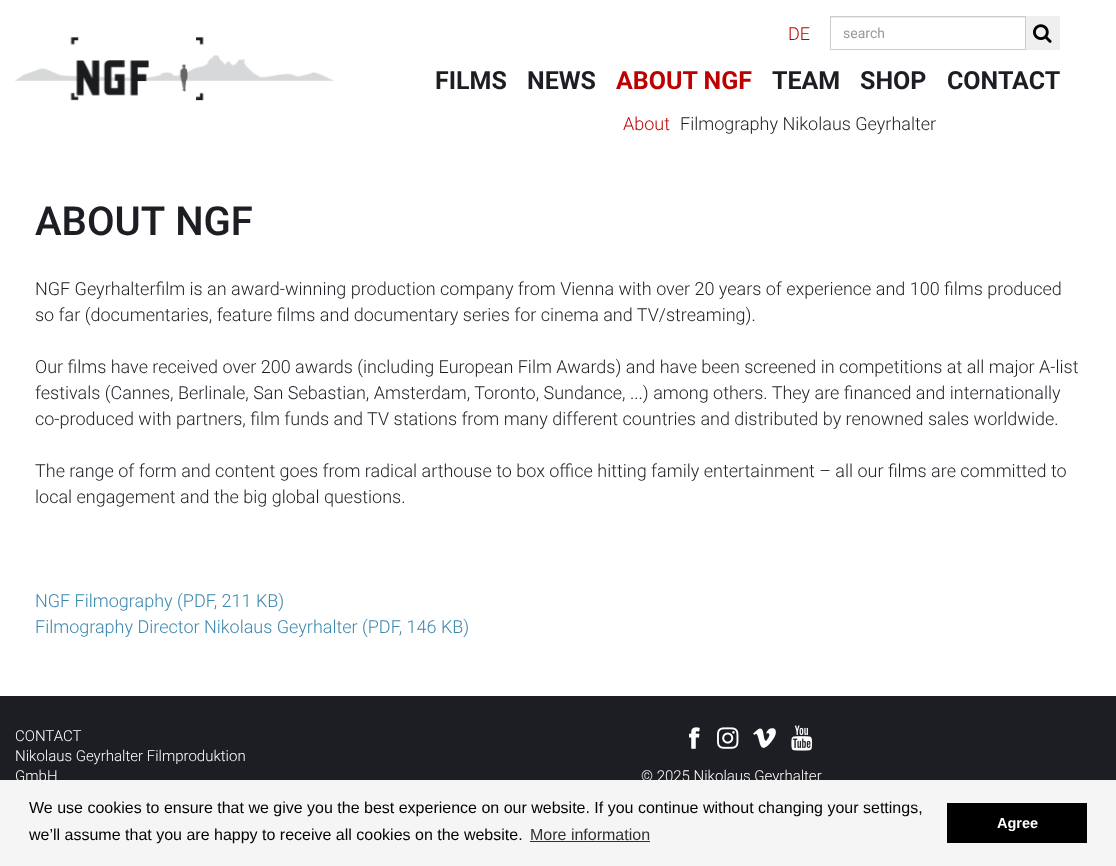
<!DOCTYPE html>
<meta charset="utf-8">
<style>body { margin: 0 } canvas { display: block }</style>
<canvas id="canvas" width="1116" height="866"></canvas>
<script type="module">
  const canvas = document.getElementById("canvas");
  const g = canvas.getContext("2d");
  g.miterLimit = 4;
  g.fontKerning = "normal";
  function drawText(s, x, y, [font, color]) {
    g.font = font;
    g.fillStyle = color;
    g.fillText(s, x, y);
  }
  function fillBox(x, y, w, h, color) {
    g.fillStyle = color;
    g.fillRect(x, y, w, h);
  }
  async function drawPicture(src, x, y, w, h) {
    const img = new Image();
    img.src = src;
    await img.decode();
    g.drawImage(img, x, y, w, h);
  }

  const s1 = ["300 18px Roboto", "#BD0101"];
  const s2 = ["14px Roboto", "#999999"];
  const s3 = ["bold 25px Roboto", "#1D1E24"];
  const s4 = ["bold 25px Roboto", "#BD0101"];
  const s5 = ["300 18px Roboto", "#1D1E24"];
  const s6 = ["500 40px Roboto", "#1D1E24"];
  const s7 = ["300 18px Roboto", "#3A87AD"];
  const s8 = ["300 15px Roboto", "#FFFFFF"];
  const s9 = ["16px Liberation Sans", "#000000"];
  const s10 = ["16px Liberation Sans", "#313131"];
  const s11 = ["bold 14.5px Liberation Sans", "#FFFFFF"];

  fillBox(0, 0, 1116, 866, "#FFFFFF");
  await drawPicture("pic1.png", 15, 37, 319, 64);
  drawText("DE", 788, 40, s1);
  fillBox(831, 17, 194, 1, "#ECECEC");
  g.strokeStyle = "#CCCCCC";
  g.strokeRect(830.5, 16.5, 195, 33);
  drawText("search", 843, 38, s2);
  fillBox(1026, 16, 34, 34, "#EFEFEF");
  await drawPicture("pic2.png", 1033, 24, 19, 19);
  drawText("FILMS", 435, 89, s3);
  drawText("NEWS", 527, 89, s3);
  drawText("ABOUT NGF", 616, 89, s4);
  drawText("About", 623, 130, s1);
  drawText("Filmography Nikolaus Geyrhalter", 680, 130, s5);
  drawText("TEAM", 772, 89, s3);
  drawText("SHOP", 860, 89, s3);
  drawText("CONTACT", 947, 89, s3);
  g.wordSpacing = "1px";
  drawText("ABOUT NGF", 35, 235, s6);
  g.wordSpacing = "0px";
  drawText("NGF Geyrhalterfilm is an award-winning production company from Vienna with over 20 years of experience and 100 films produced", 35, 295, s5);
  drawText("so far (documentaries, feature films and documentary series for cinema and TV/streaming).", 35, 321, s5);
  drawText("Our films have received over 200 awards (including European Film Awards) and have been screened in competitions at all major A-list", 35, 373, s5);
  drawText("festivals (Cannes, Berlinale, San Sebastian, Amsterdam, Toronto, Sundance, ...) among others. They are financed and internationally", 35, 399, s5);
  drawText("co-produced with partners, film funds and TV stations from many different countries and distributed by renowned sales worldwide.", 35, 425, s5);
  drawText("The range of form and content goes from radical arthouse to box office hitting family entertainment – all our films are committed to", 35, 477, s5);
  drawText("local engagement and the big global questions.", 35, 503, s5);
  drawText("NGF Filmography (PDF, 211 KB)", 35, 607, s7);
  drawText("Filmography Director Nikolaus Geyrhalter (PDF, 146 KB)", 35, 633, s7);
  fillBox(0, 696, 1116, 84, "#1D1E24");
  drawText("CONTACT", 15, 741, s8);
  drawText("Nikolaus Geyrhalter Filmproduktion", 15, 761, s8);
  drawText("GmbH", 15, 781, s8);
  await drawPicture("pic3.png", 689, 727, 11, 22);
  await drawPicture("pic4.png", 717, 727, 22, 22);
  await drawPicture("pic5.png", 753, 728, 23, 20);
  await drawPicture("pic6.png", 791, 725, 22, 26);
  drawText("© 2025 Nikolaus Geyrhalter", 641, 781, s8);
  fillBox(0, 780, 1116, 86, "#F5F5F5");
  drawText("We use cookies to ensure that we give you the best experience on our website. If you continue without changing your settings,", 29, 813, s9);
  drawText("we’ll assume that you are happy to receive all cookies on the website.", 29, 840, s9);
  drawText("More information", 530, 840, s10);
  fillBox(530, 841, 120, 1, "#313131");
  fillBox(947, 803, 140, 40, "#000000");
  drawText("Agree", 997, 828, s11);
</script>
